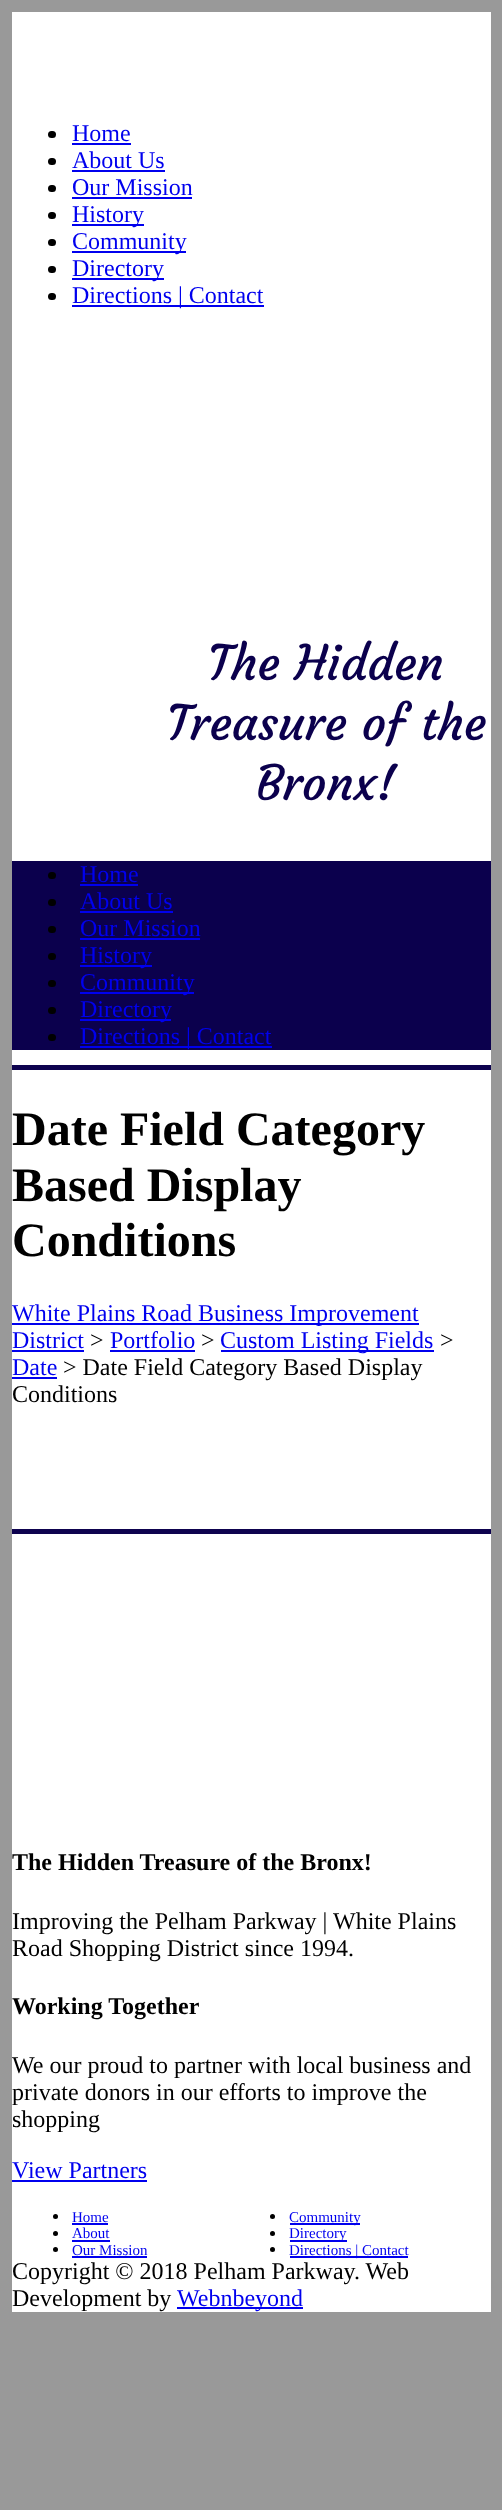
async function draw(canvas) {
	canvas.width = 502;
	canvas.height = 2510;
	const c = canvas.getContext('2d');
	c.miterLimit = 4;
	c.fontKerning = 'normal';

	c.fillStyle = '#999';
	c.fillRect(0, 0, 502, 2510);
	c.fillStyle = '#fff';
	c.fillRect(12, 12, 479, 2300);
	c.fillStyle = '#000';
	c.beginPath();
	c.roundRect(48, 131, 8, 7, 3.5);
	c.fill();
	c.font = '24px Liberation Serif';
	c.fillStyle = '#00e';
	c.fillText('Home', 72, 141);
	c.fillRect(72, 143, 59, 2);
	c.fillStyle = '#000';
	c.beginPath();
	c.roundRect(48, 158, 8, 7, 3.5);
	c.fill();
	c.fillStyle = '#00e';
	c.fillText('About Us', 72, 168);
	c.fillRect(72, 170, 93, 2);
	c.fillStyle = '#000';
	c.beginPath();
	c.roundRect(48, 185, 8, 7, 3.5);
	c.fill();
	c.fillStyle = '#00e';
	c.fillText('Our Mission', 72, 195);
	c.fillRect(72, 197, 120, 2);
	c.fillStyle = '#000';
	c.beginPath();
	c.roundRect(48, 212, 8, 7, 3.5);
	c.fill();
	c.fillStyle = '#00e';
	c.fillRect(72, 224, 72, 2);
	c.fillText('History', 72, 222);
	c.fillStyle = '#000';
	c.beginPath();
	c.roundRect(48, 239, 8, 7, 3.5);
	c.fill();
	c.fillStyle = '#00e';
	c.fillRect(72, 251, 114, 2);
	c.fillText('Community', 72, 249);
	c.fillStyle = '#000';
	c.beginPath();
	c.roundRect(48, 266, 8, 7, 3.5);
	c.fill();
	c.fillStyle = '#00e';
	c.fillRect(72, 278, 92, 2);
	c.fillText('Directory', 72, 276);
	c.fillStyle = '#000';
	c.beginPath();
	c.roundRect(48, 293, 8, 7, 3.5);
	c.fill();
	c.fillStyle = '#00e';
	c.fillRect(72, 305, 192, 2);
	c.fillText('Directions | Contact', 72, 303);
	c.fillStyle = '#0e034f';
	c.fillRect(12, 1065, 479, 5);
	c.font = '48px Courgette';
	c.fillStyle = '#0b004d';
	for (const [text, x, y] of [
		['The Hidden', 208, 680],
		['Treasure of the', 167, 740],
		['Bronx!', 256, 800],
	]) {
		c.fillText(text, x, y);
	}
	c.fillRect(12, 861, 479, 189);
	c.fillStyle = '#000';
	c.beginPath();
	c.roundRect(48, 872, 8, 7, 3.5);
	c.fill();
	c.font = '24px Liberation Serif';
	c.fillStyle = '#00e';
	c.fillText('Home', 80, 882);
	c.fillRect(80, 884, 58, 2);
	c.fillStyle = '#000';
	c.beginPath();
	c.roundRect(48, 899, 8, 7, 3.5);
	c.fill();
	c.fillStyle = '#00e';
	c.fillText('About Us', 80, 909);
	c.fillRect(80, 911, 93, 2);
	c.fillStyle = '#000';
	c.beginPath();
	c.roundRect(48, 926, 8, 7, 3.5);
	c.fill();
	c.fillStyle = '#00e';
	c.fillText('Our Mission', 80, 936);
	c.fillRect(80, 938, 120, 2);
	c.fillStyle = '#000';
	c.beginPath();
	c.roundRect(48, 953, 8, 7, 3.5);
	c.fill();
	c.fillStyle = '#00e';
	c.fillRect(80, 965, 72, 2);
	c.fillText('History', 80, 963);
	c.fillStyle = '#000';
	c.beginPath();
	c.roundRect(48, 980, 8, 7, 3.5);
	c.fill();
	c.fillStyle = '#00e';
	c.fillRect(80, 992, 114, 2);
	c.fillText('Community', 80, 990);
	c.fillStyle = '#000';
	c.beginPath();
	c.roundRect(48, 1007, 8, 7, 3.5);
	c.fill();
	c.fillStyle = '#00e';
	c.fillRect(80, 1019, 91, 2);
	c.fillText('Directory', 80, 1017);
	c.fillStyle = '#000';
	c.beginPath();
	c.roundRect(48, 1034, 8, 7, 3.5);
	c.fill();
	c.fillStyle = '#00e';
	c.fillRect(80, 1046, 192, 2);
	c.fillText('Directions | Contact', 80, 1044);
	c.font = 'bold 48px Liberation Serif';
	c.fillStyle = '#000';
	for (const [text, x, y] of [
		['Date Field Category', 12, 1145],
		['Based Display', 12, 1201],
		['Conditions', 12, 1256],
	]) {
		c.fillText(text, x, y);
	}
	c.fillStyle = '#00e';
	c.fillRect(12, 1323, 407, 2);
	c.font = '24px Liberation Serif';
	c.fillText('White Plains Road Business Improvement', 12, 1321);
	c.fillText('District', 12, 1348);
	c.fillRect(12, 1350, 72, 2);
	c.fillStyle = '#000';
	c.fillText('>', 90, 1348);
	c.fillStyle = '#00e';
	c.fillText('Portfolio', 110, 1348);
	c.fillRect(110, 1350, 85, 2);
	c.fillStyle = '#000';
	c.fillText('>', 201, 1348);
	c.fillStyle = '#00e';
	c.fillRect(221, 1350, 213, 2);
	c.fillText('Custom Listing Fields', 220, 1348);
	c.fillStyle = '#000';
	c.fillText('>', 440, 1348);
	c.fillStyle = '#00e';
	c.fillText('Date', 12, 1375);
	c.fillRect(12, 1377, 45, 2);
	c.fillStyle = '#000';
	c.fillText('> Date Field Category Based Display', 63, 1375);
	c.fillText('Conditions', 12, 1402);
	c.fillStyle = '#0e034f';
	c.fillRect(12, 1529, 479, 5);
	c.font = 'bold 24px Liberation Serif';
	c.fillStyle = '#000';
	c.fillText('The Hidden Treasure of the Bronx!', 12, 1870);
	c.font = '24px Liberation Serif';
	c.fillText('Improving the Pelham Parkway | White Plains', 12, 1929);
	c.fillText('Road Shopping District since 1994.', 12, 1956);
	c.font = 'bold 24px Liberation Serif';
	c.fillText('Working Together', 12, 2014);
	c.font = '24px Liberation Serif';
	for (const [text, x, y] of [
		['We our proud to partner with local business and', 12, 2073],
		['private donors in our efforts to improve the', 12, 2100],
		['shopping', 12, 2127],
	]) {
		c.fillText(text, x, y);
	}
	c.fillStyle = '#00e';
	c.fillText('View Partners', 12, 2178);
	c.fillRect(12, 2180, 135, 2);
	c.fillStyle = '#000';
	c.beginPath();
	c.arc(55.5, 2216.5, 2.5, 0, 2 * Math.PI);
	c.fill();
	c.font = '15px Liberation Serif';
	c.fillStyle = '#00e';
	c.fillText('Home', 72, 2222);
	c.fillRect(72, 2223, 36, 2);
	c.fillStyle = '#000';
	c.beginPath();
	c.arc(272.5, 2216.5, 2.5, 0, 2 * Math.PI);
	c.fill();
	c.fillStyle = '#00e';
	c.fillRect(290, 2223, 70, 2);
	c.fillText('Community', 289, 2222);
	c.fillStyle = '#000';
	c.beginPath();
	c.arc(55.5, 2233.5, 2.5, 0, 2 * Math.PI);
	c.fill();
	c.fillStyle = '#00e';
	c.fillText('About', 72, 2238);
	c.fillRect(72, 2240, 38, 2);
	c.fillStyle = '#000';
	c.beginPath();
	c.arc(272.5, 2233.5, 2.5, 0, 2 * Math.PI);
	c.fill();
	c.fillStyle = '#00e';
	c.fillRect(290, 2240, 57, 2);
	c.fillText('Directory', 289, 2238);
	c.fillStyle = '#000';
	c.beginPath();
	c.arc(55.5, 2249.5, 2.5, 0, 2 * Math.PI);
	c.fill();
	c.fillStyle = '#00e';
	c.fillText('Our Mission', 72, 2255);
	c.fillRect(72, 2256, 75, 2);
	c.fillStyle = '#000';
	c.beginPath();
	c.arc(272.5, 2249.5, 2.5, 0, 2 * Math.PI);
	c.fill();
	c.fillStyle = '#00e';
	c.fillRect(290, 2256, 118, 2);
	c.fillText('Directions | Contact', 289, 2255);
	c.font = '24px Liberation Serif';
	c.fillStyle = '#000';
	c.fillText('Copyright © 2018 Pelham Parkway. Web', 12, 2279);
	c.fillText('Development by', 12, 2306);
	c.fillStyle = '#00e';
	c.fillRect(177, 2307, 126, 2);
	c.fillText('Webnbeyond', 177, 2306);
}

draw(document.querySelector('canvas'));
